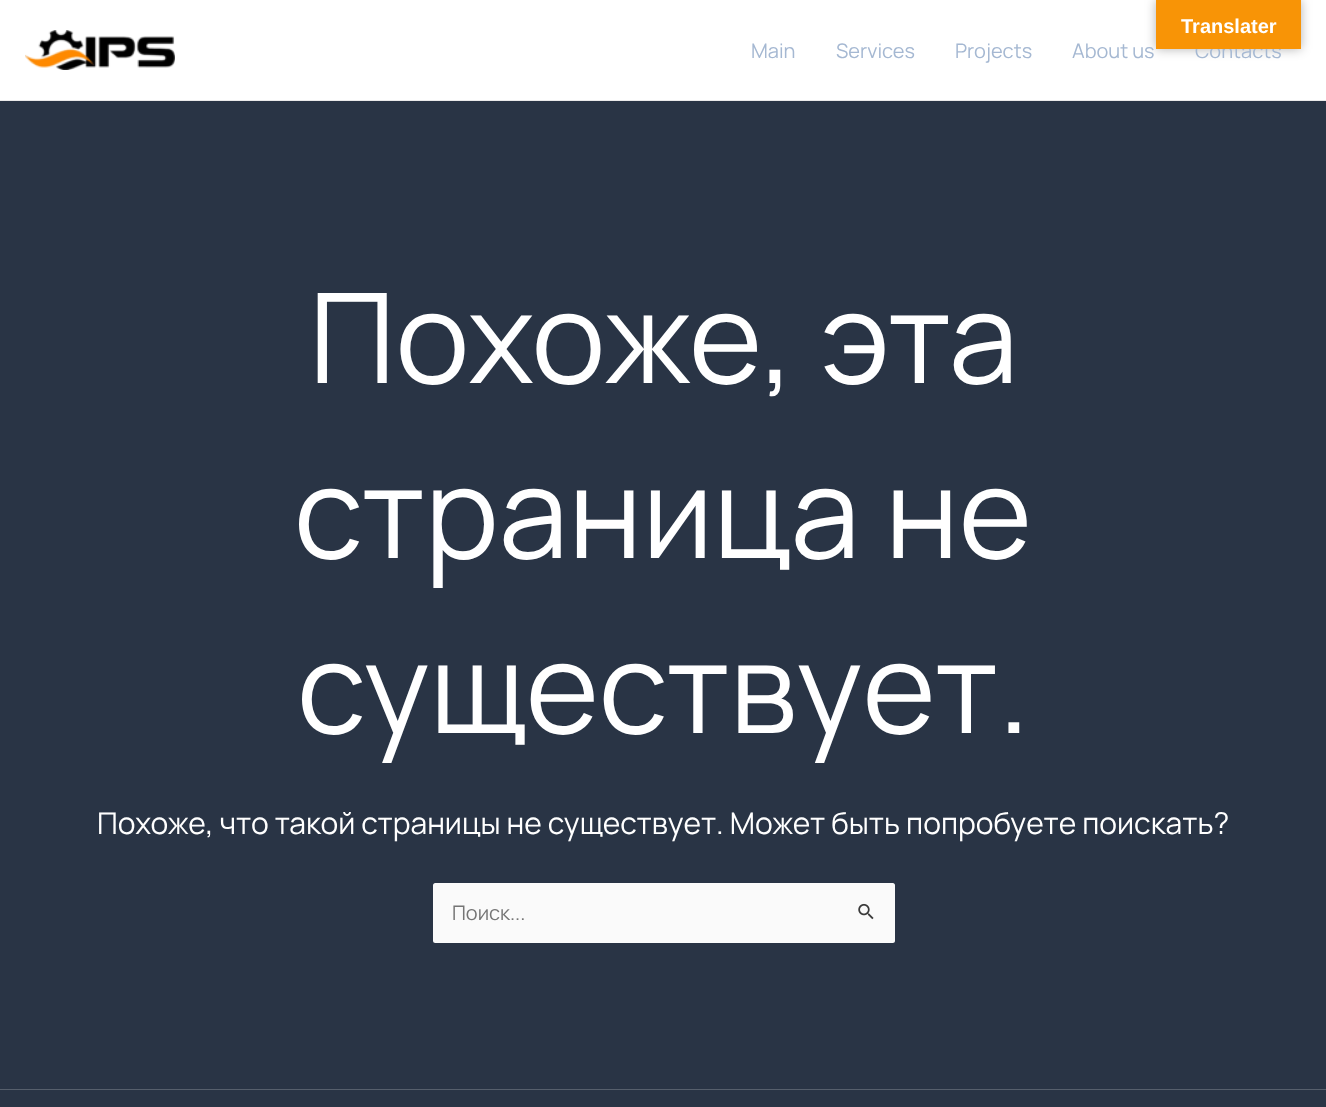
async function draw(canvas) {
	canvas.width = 1326;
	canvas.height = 1107;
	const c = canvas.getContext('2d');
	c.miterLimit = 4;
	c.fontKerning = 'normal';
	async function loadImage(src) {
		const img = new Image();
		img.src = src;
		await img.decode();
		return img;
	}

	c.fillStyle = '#293445';
	c.fillRect(0, 0, 1326, 1107);
	c.fillStyle = '#fff';
	c.fillRect(0, 0, 1326, 100);
	c.fillStyle = '#0000004d';
	c.filter = 'blur(5.5px)';
	c.beginPath();
	c.rect(1156, 0, 145, 49);
	c.fill();
	c.filter = 'none';
	c.font = '20px Manrope';
	c.fillStyle = '#a5b8d2';
	c.fillText('Contacts', 1195, 58);
	c.fillStyle = '#f89406';
	c.fillRect(1156, 0, 145, 49);
	c.font = 'bold 20px Liberation Sans';
	c.fillStyle = '#fff';
	c.fillText('Translater', 1181, 33);
	c.fillStyle = '#eaeaea';
	c.fillRect(0, 100, 1326, 1);
	c.drawImage(await loadImage('img1.png'), 25, 30, 150, 40);
	c.font = '20px Manrope';
	c.fillStyle = '#a5b8d2';
	for (const [text, x, y] of [
		['Main', 751, 58],
		['Services', 836, 58],
		['Projects', 955, 58],
		['About us', 1072, 58],
	]) {
		c.fillText(text, x, y);
	}
	c.font = '125px Manrope';
	c.fillStyle = '#fff';
	for (const [text, x, y] of [
		['Похоже, эта', 309, 383],
		['страница не', 294, 558],
		['существует.', 297, 733],
	]) {
		c.fillText(text, x, y);
	}
	c.font = '30px Manrope';
	c.fillText('Похоже, что такой страницы не существует. Может быть попробуете поискать?', 97, 834);
	c.fillStyle = '#fafafa';
	c.beginPath();
	c.roundRect(433, 883, 462, 60, 2.5);
	c.fill();
	c.beginPath();
	c.roundRect(433.5, 883.5, 461, 59, 2);
	c.strokeStyle = '#ffffff36';
	c.stroke();
	c.font = '20px Manrope';
	c.fillStyle = '#757575';
	c.fillText('Поиск...', 452, 920);
	c.drawImage(await loadImage('img2.png'), 858, 903, 16, 17);
	c.fillStyle = '#565f6c';
	c.fillRect(0, 1089, 1326, 1);
}

draw(document.querySelector('canvas'));
